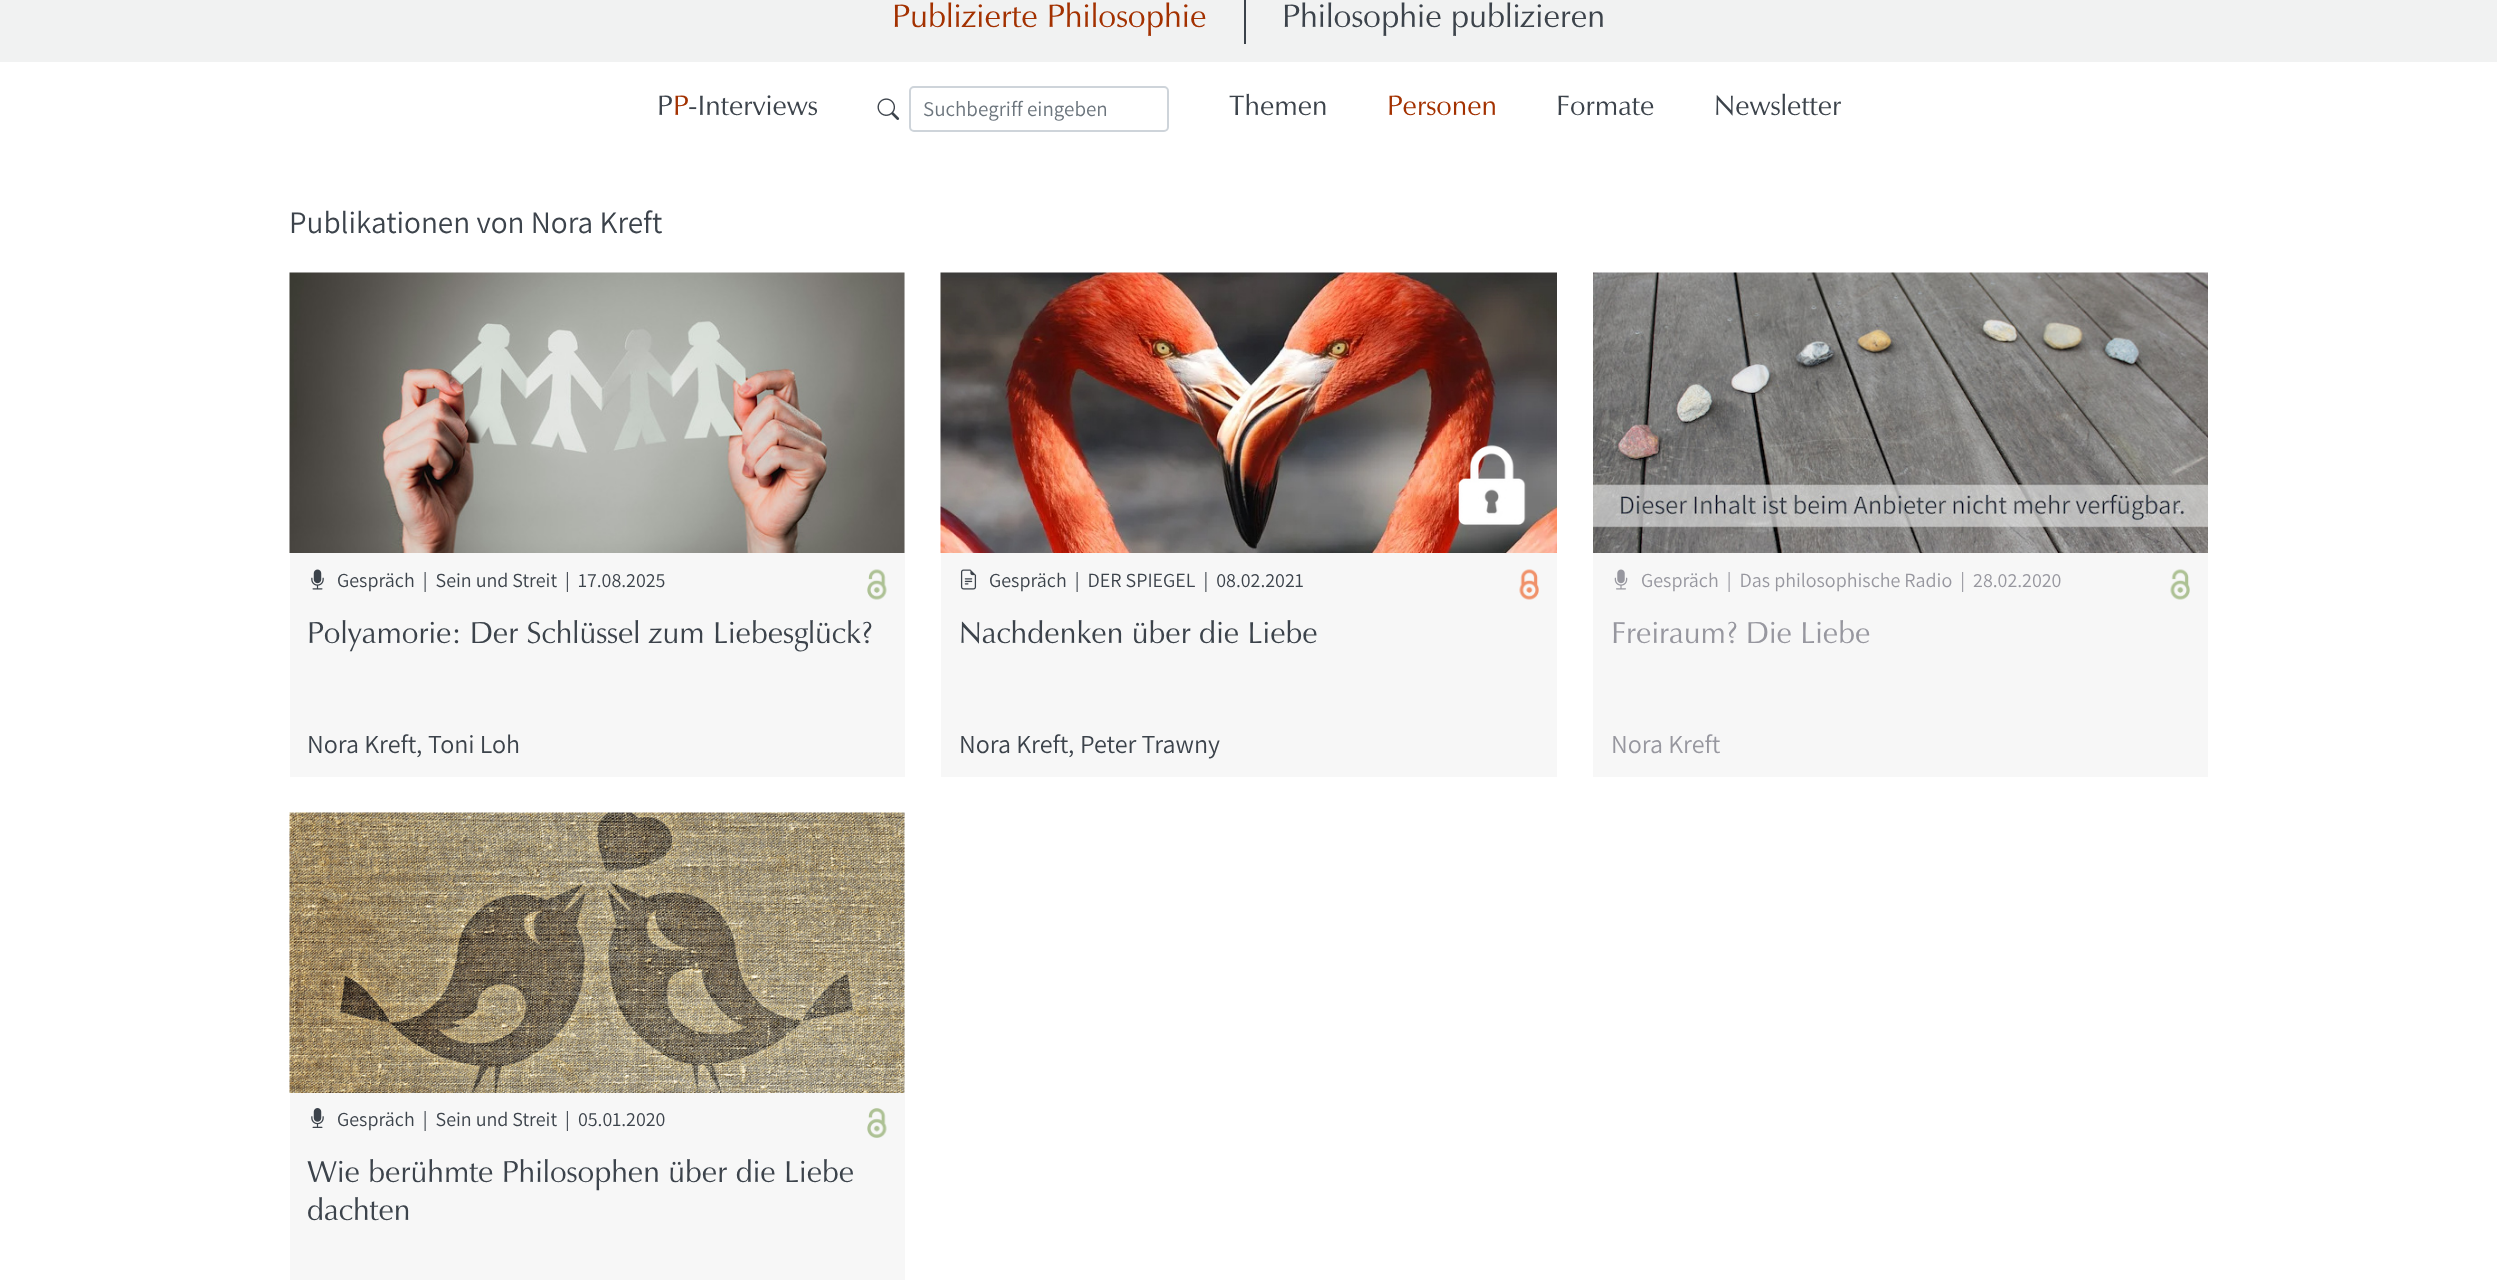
async function draw(canvas) {
	canvas.width = 2497;
	canvas.height = 1280;
	const c = canvas.getContext('2d');
	c.miterLimit = 4;
	c.fontKerning = 'normal';
	async function loadImage(src) {
		const img = new Image();
		img.src = src;
		await img.decode();
		return img;
	}

	c.fillStyle = '#fff';
	c.fillRect(0, 0, 2497, 1280);
	c.fillStyle = '#f1f2f2';
	c.fillRect(0, 0, 2497, 62);
	c.font = '33.5px "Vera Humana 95"';
	c.fillStyle = '#a33100';
	c.fillText('Publizierte Philosophie', 892, 27);
	c.fillStyle = '#3c434b';
	c.fillRect(1244, 0, 2, 44);
	c.fillText('Philosophie publizieren', 1282, 27);
	c.font = '29px "Vera Humana 95"';
	c.fillText('P', 657, 115);
	c.fillStyle = '#a33100';
	c.fillText('P', 673, 115);
	c.fillStyle = '#3c434b';
	c.fillText('-Interviews', 688, 115);
	c.drawImage(await loadImage('img1.png'), 877, 98, 23, 22);
	c.beginPath();
	c.roundRect(910, 87, 258, 44, 4);
	c.strokeStyle = '#ced4da';
	c.lineWidth = 2;
	c.stroke();
	c.font = '21px Assistant';
	c.fillStyle = '#6c757d';
	c.fillText('Suchbegriff eingeben', 923, 116);
	c.font = '29px "Vera Humana 95"';
	c.fillStyle = '#3c434b';
	c.fillText('Themen', 1229, 115);
	c.fillStyle = '#a33100';
	c.fillText('Personen', 1387, 115);
	c.fillStyle = '#3c434b';
	c.fillText('Formate', 1556, 115);
	c.fillText('Newsletter', 1714, 115);
	c.font = '31.25px Assistant';
	c.fillText('Publikationen von Nora Kreft', 289, 233);
	c.fillStyle = '#f7f7f7';
	c.fillRect(290, 273, 615, 504);
	c.drawImage(await loadImage('img2.png'), 289, 272, 616, 281);
	c.drawImage(await loadImage('img3.png'), 311, 569, 13, 21);
	c.font = '20px Assistant';
	c.fillStyle = '#3c434b';
	c.fillText('Gespräch  |  Sein und Streit  |  17.08.2025', 337, 587);
	c.drawImage(await loadImage('img4.png'), 867, 569, 20, 31);
	c.font = '31.25px "Vera Humana 95"';
	c.fillText('Polyamorie: Der Schlüssel zum Liebesglück?', 307, 643);
	c.font = '26px Assistant';
	for (const [text, x, y] of [
		['Nora Kreft', 307, 753],
		[',', 416, 753],
		['Toni Loh', 428, 753],
	]) {
		c.fillText(text, x, y);
	}
	c.fillStyle = '#f7f7f7';
	c.fillRect(941, 553, 616, 224);
	c.drawImage(await loadImage('img5.png'), 940, 272, 617, 281);
	c.drawImage(await loadImage('img6.png'), 960, 569, 17, 21);
	c.font = '20px Assistant';
	c.fillStyle = '#3c434b';
	c.fillText('Gespräch  |  DER SPIEGEL  |  08.02.2021', 989, 587);
	c.drawImage(await loadImage('img7.png'), 1519, 569, 20, 31);
	c.font = '31.25px "Vera Humana 95"';
	c.fillText('Nachdenken über die Liebe', 959, 643);
	c.font = '26px Assistant';
	for (const [text, x, y] of [
		['Nora Kreft', 959, 753],
		[',', 1068, 753],
		['Peter Trawny', 1080, 753],
	]) {
		c.fillText(text, x, y);
	}
	c.fillStyle = '#f7f7f7';
	c.fillRect(1593, 553, 615, 224);
	c.drawImage(await loadImage('img8.png'), 1593, 272, 615, 281);
	c.drawImage(await loadImage('img9.png'), 1614, 569, 14, 21);
	c.font = '20px Assistant';
	c.fillStyle = '#97979f';
	c.fillText('Gespräch  |  Das philosophische Radio  |  28.02.2020', 1641, 587);
	c.drawImage(await loadImage('img10.png'), 2170, 569, 20, 31);
	c.font = '31.25px "Vera Humana 95"';
	c.fillText('Freiraum? Die Liebe', 1611, 643);
	c.font = '26px Assistant';
	c.fillText('Nora Kreft', 1611, 753);
	c.fillStyle = '#f7f7f7';
	c.fillRect(290, 813, 615, 467);
	c.drawImage(await loadImage('img11.png'), 289, 812, 616, 281);
	c.drawImage(await loadImage('img12.png'), 311, 1108, 13, 20);
	c.font = '20px Assistant';
	c.fillStyle = '#3c434b';
	c.fillText('Gespräch  |  Sein und Streit  |  05.01.2020', 337, 1126);
	c.drawImage(await loadImage('img13.png'), 867, 1108, 20, 30);
	c.font = '31.25px "Vera Humana 95"';
	c.fillText('Wie berühmte Philosophen über die Liebe', 307, 1182);
	c.save();
	c.beginPath();
	c.rect(308, 1151, 579, 112);
	c.clip();
	c.fillText('dachten', 307, 1220);
	c.restore();
}

draw(document.querySelector('canvas'));
